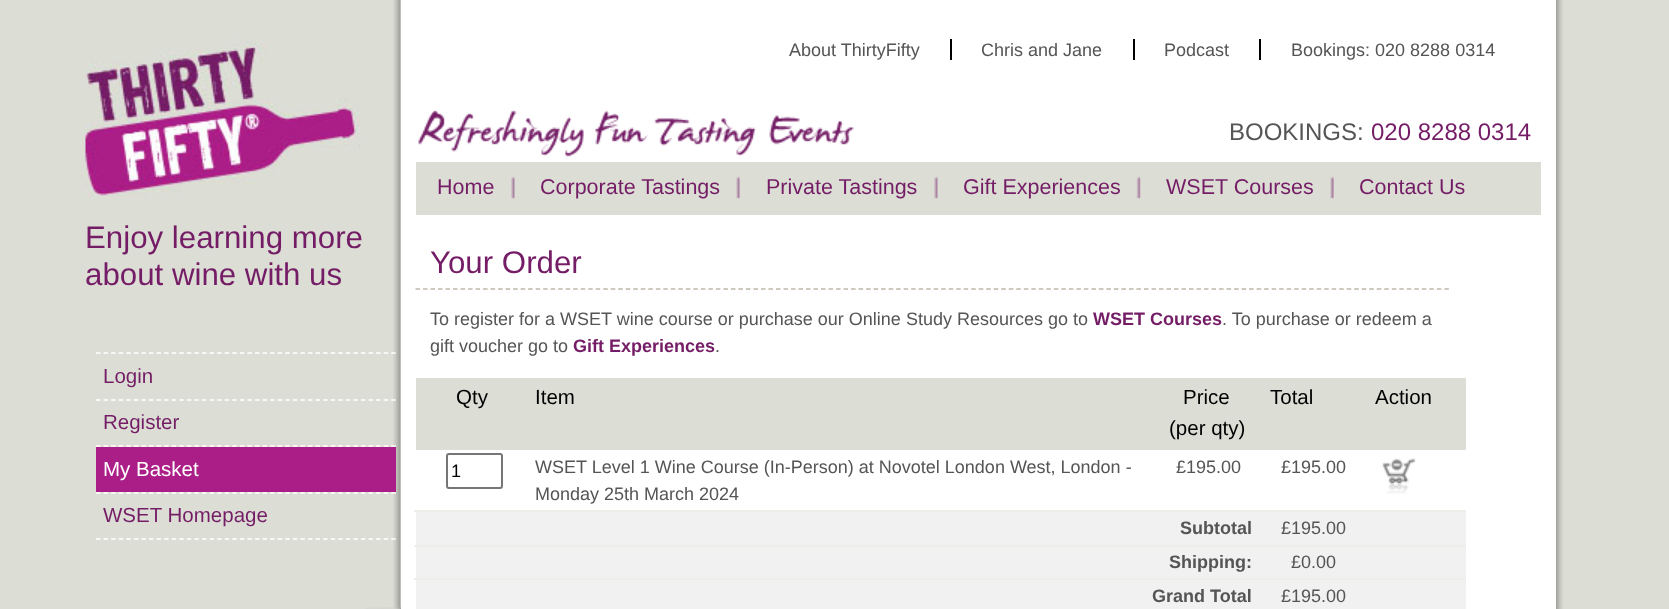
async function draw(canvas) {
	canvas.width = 1669;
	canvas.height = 609;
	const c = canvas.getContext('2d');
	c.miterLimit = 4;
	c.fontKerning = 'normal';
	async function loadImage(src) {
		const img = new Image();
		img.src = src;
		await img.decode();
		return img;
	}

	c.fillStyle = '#dcddd5';
	c.fillRect(0, 0, 1669, 609);
	c.drawImage(await loadImage('img1.png'), 393, 0, 1170, 609);
	c.drawImage(await loadImage('img2.png'), 85, 39, 276, 157);
	c.font = '31.25px Liberation Sans';
	c.fillStyle = '#741d66';
	c.fillText('Enjoy learning more', 85, 248);
	c.fillText('about wine with us', 85, 285);
	c.beginPath();
	c.moveTo(96, 353);
	c.lineTo(396, 353);
	c.strokeStyle = '#fff';
	c.lineWidth = 1.5;
	c.setLineDash([4.5, 3.07]);
	c.stroke();
	c.font = '20.5px Liberation Sans';
	c.fillText('Login', 103, 383);
	c.beginPath();
	c.moveTo(96, 400);
	c.lineTo(396, 400);
	c.stroke();
	c.fillText('Register', 103, 429);
	c.beginPath();
	c.moveTo(96, 446);
	c.lineTo(396, 446);
	c.stroke();
	c.fillStyle = '#ab1e88';
	c.fillRect(96, 447, 300, 45);
	c.fillStyle = '#fff';
	c.fillText('My Basket', 103, 476);
	c.beginPath();
	c.moveTo(96, 493);
	c.lineTo(396, 493);
	c.stroke();
	c.beginPath();
	c.moveTo(96, 539);
	c.lineTo(396, 539);
	c.stroke();
	c.fillStyle = '#741d66';
	c.fillText('WSET Homepage', 103, 522);
	c.drawImage(await loadImage('img3.png'), 365, 607, 36, 2);
	c.fillStyle = '#fff';
	c.fillRect(401, 0, 1155, 609);
	c.fillStyle = '#000';
	c.fillRect(950, 39, 2, 21);
	c.font = '18px Liberation Sans';
	c.fillStyle = '#555';
	c.fillText('About ThirtyFifty', 789, 56);
	c.fillStyle = '#000';
	c.fillRect(1133, 39, 2, 21);
	c.fillStyle = '#555';
	c.fillText('Chris and Jane', 981, 56);
	c.fillStyle = '#000';
	c.fillRect(1259, 39, 2, 21);
	c.fillStyle = '#555';
	c.fillText('Podcast', 1164, 56);
	c.fillText('Bookings: 020 8288 0314', 1291, 56);
	c.drawImage(await loadImage('img4.png'), 418, 110, 436, 47);
	c.font = '24px Liberation Sans';
	c.fillText('BOOKINGS:', 1229, 140);
	c.fillStyle = '#741d66';
	c.fillText('020 8288 0314', 1371, 140);
	c.fillStyle = '#dcddd5';
	c.fillRect(416, 162, 1125, 53);
	c.drawImage(await loadImage('img5.png'), 511, 176, 4, 23);
	c.font = '21.5px Liberation Sans';
	c.fillStyle = '#741d66';
	c.fillText('Home', 437, 194);
	c.drawImage(await loadImage('img6.png'), 736, 176, 4, 23);
	c.fillText('Corporate Tastings', 540, 194);
	c.drawImage(await loadImage('img5.png'), 934, 176, 4, 23);
	c.fillText('Private Tastings', 766, 194);
	c.drawImage(await loadImage('img7.png'), 1136, 176, 5, 23);
	c.fillText('Gift Experiences', 963, 194);
	c.drawImage(await loadImage('img6.png'), 1330, 176, 4, 23);
	c.fillText('WSET Courses', 1166, 194);
	c.fillText('Contact Us', 1359, 194);
	c.beginPath();
	c.moveTo(415.5, 289);
	c.lineTo(1450.5, 289);
	c.strokeStyle = '#beb8a9';
	c.setLineDash([4.5, 3.01]);
	c.stroke();
	c.font = '31.25px Liberation Sans';
	c.fillText('Your Order', 430, 273);
	c.font = '18px Liberation Sans';
	c.fillStyle = '#555';
	c.fillText('To register for a WSET wine course or purchase our Online Study Resources go to', 430, 325);
	c.font = 'bold 18px Liberation Sans';
	c.fillStyle = '#741d66';
	c.fillText('WSET Courses', 1093, 325);
	c.font = '18px Liberation Sans';
	c.fillStyle = '#555';
	c.fillText('. To purchase or redeem a', 1222, 325);
	c.fillText('gift voucher go to', 430, 352);
	c.font = 'bold 18px Liberation Sans';
	c.fillStyle = '#741d66';
	c.fillText('Gift Experiences', 573, 352);
	c.font = '18px Liberation Sans';
	c.fillStyle = '#555';
	c.fillText('.', 715, 352);
	c.fillStyle = '#dcddd5';
	c.fillRect(416, 378, 1050, 72);
	c.font = '20.5px Liberation Sans';
	c.fillStyle = '#000';
	for (const [text, x, y] of [
		['Qty', 456, 404],
		['Item', 535, 404],
		['Price', 1183, 404],
		['(per qty)', 1169, 435],
		['Total', 1270, 404],
		['Action', 1375, 404],
	]) {
		c.fillText(text, x, y);
	}
	c.fillStyle = '#ededea';
	c.fillRect(414, 510, 1052, 2);
	c.beginPath();
	c.roundRect(447, 454, 55, 34, 2);
	c.strokeStyle = '#767676';
	c.lineWidth = 2;
	c.setLineDash([]);
	c.stroke();
	c.font = '18px Liberation Sans';
	c.fillStyle = '#000';
	c.fillText('1', 451, 477);
	c.fillStyle = '#555';
	for (const [text, x, y] of [
		['WSET Level 1 Wine Course (In-Person) at Novotel London West, London -', 535, 473],
		['Monday 25th March 2024', 535, 500],
		['£195.00', 1176, 473],
		['£195.00', 1281, 473],
	]) {
		c.fillText(text, x, y);
	}
	c.drawImage(await loadImage('img8.png'), 1382, 458, 34, 36);
	c.fillStyle = '#f1f1f1';
	c.fillRect(416, 512, 1050, 33);
	c.fillStyle = '#ededea';
	c.fillRect(414, 545, 1052, 2);
	c.font = 'bold 18px Liberation Sans';
	c.fillStyle = '#555';
	c.fillText('Subtotal', 1180, 534);
	c.font = '18px Liberation Sans';
	c.fillText('£195.00', 1281, 534);
	c.fillStyle = '#f1f1f1';
	c.fillRect(416, 547, 1050, 31);
	c.fillStyle = '#ededea';
	c.fillRect(414, 578, 1052, 2);
	c.font = 'bold 18px Liberation Sans';
	c.fillStyle = '#555';
	c.fillText('Shipping:', 1169, 568);
	c.font = '18px Liberation Sans';
	c.fillText('£0.00', 1291, 568);
	c.fillStyle = '#f1f1f1';
	c.fillRect(416, 580, 1050, 29);
	c.font = 'bold 18px Liberation Sans';
	c.fillStyle = '#555';
	c.fillText('Grand Total', 1152, 602);
	c.font = '18px Liberation Sans';
	c.fillText('£195.00', 1281, 602);
}

draw(document.querySelector('canvas'));
